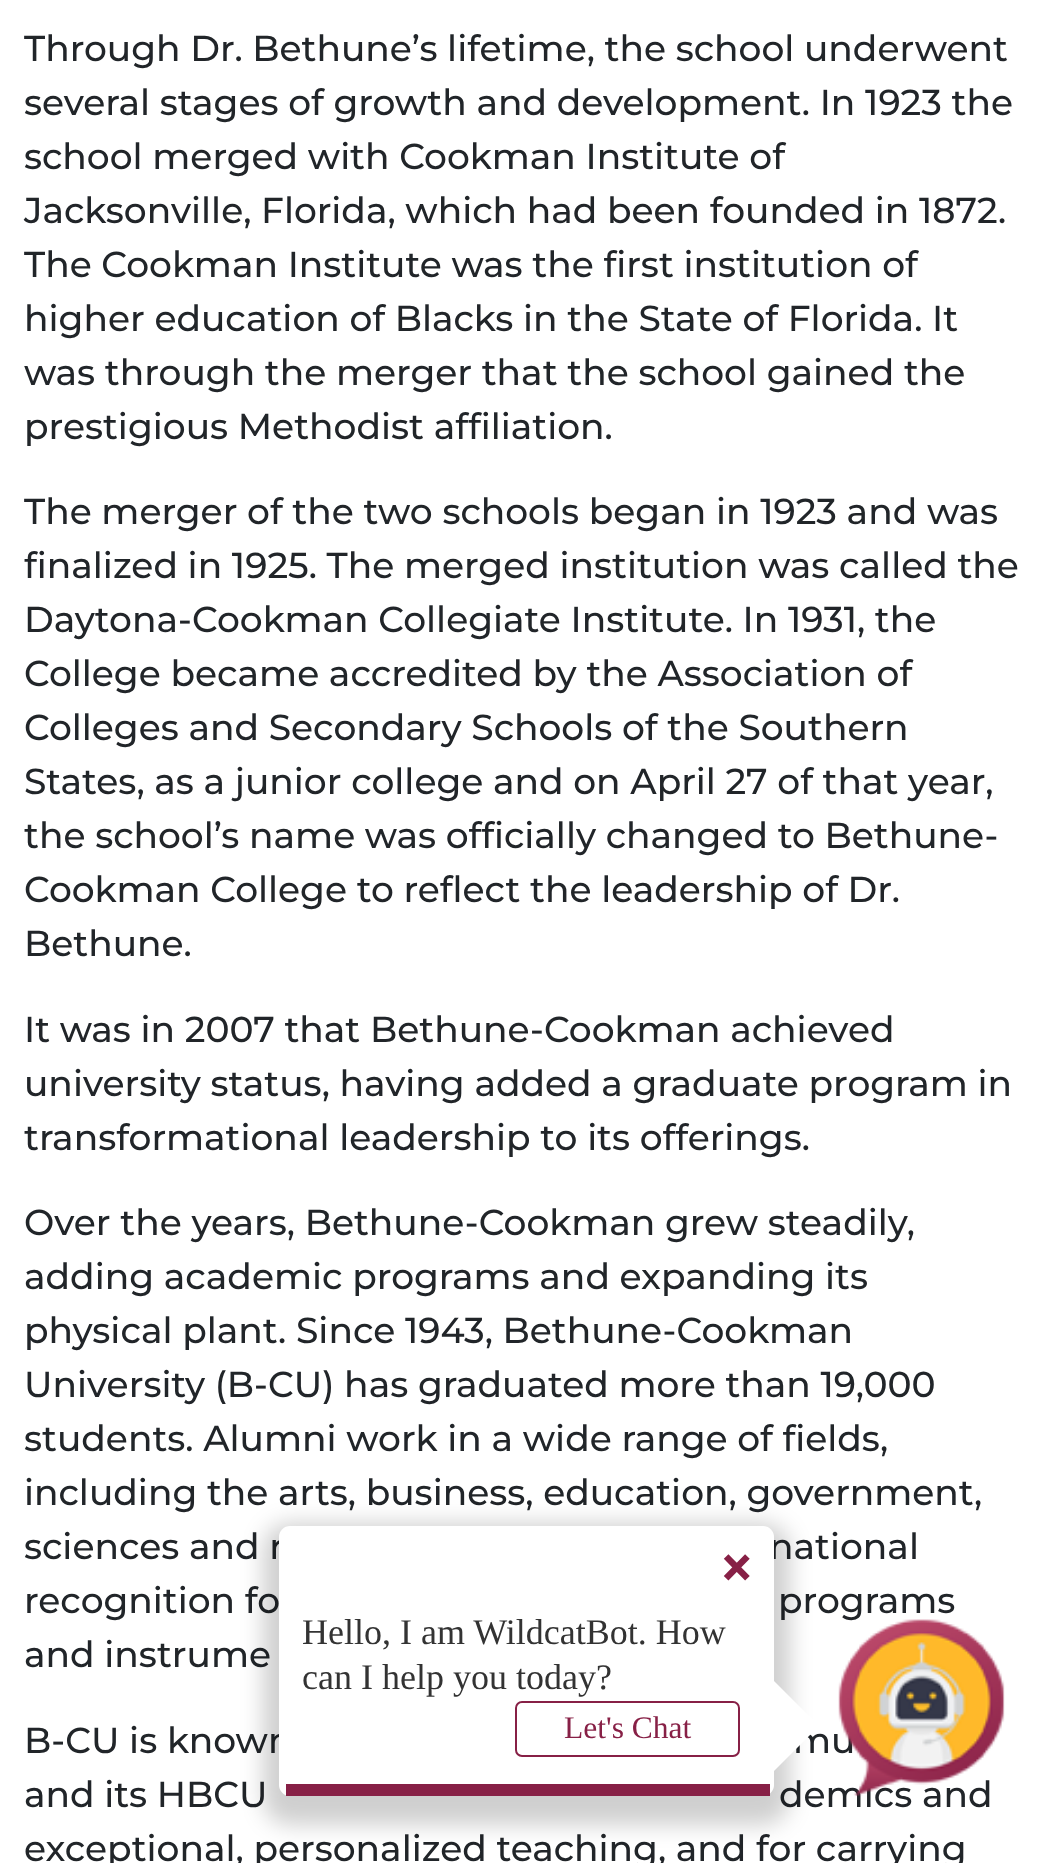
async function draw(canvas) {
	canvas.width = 1043;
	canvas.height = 1863;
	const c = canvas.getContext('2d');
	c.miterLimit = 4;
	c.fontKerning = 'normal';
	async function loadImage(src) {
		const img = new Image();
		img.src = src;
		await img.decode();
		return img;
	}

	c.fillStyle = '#fff';
	c.fillRect(0, 0, 1043, 1863);
	c.font = '500 36px Montserrat';
	c.fillStyle = '#212529';
	for (const [text, x, y] of [
		['Through Dr. Bethune’s lifetime, the school underwent', 24, 61],
		['several stages of growth and development. In 1923 the', 24, 115],
		['school merged with Cookman Institute of', 24, 169],
		['Jacksonville, Florida, which had been founded in 1872.', 24, 223],
		['The Cookman Institute was the first institution of', 24, 277],
		['higher education of Blacks in the State of Florida. It', 24, 331],
		['was through the merger that the school gained the', 24, 385],
		['prestigious Methodist affiliation.', 24, 439],
		['The merger of the two schools began in 1923 and was', 24, 524],
		['finalized in 1925. The merged institution was called the', 24, 578],
		['Daytona-Cookman Collegiate Institute. In 1931, the', 24, 632],
		['College became accredited by the Association of', 24, 686],
		['Colleges and Secondary Schools of the Southern', 24, 740],
		['States, as a junior college and on April 27 of that year,', 24, 794],
		['the school’s name was officially changed to Bethune-', 24, 848],
		['Cookman College to reflect the leadership of Dr.', 24, 902],
		['Bethune.', 24, 956],
		['It was in 2007 that Bethune-Cookman achieved', 24, 1042],
		['university status, having added a graduate program in', 24, 1096],
		['transformational leadership to its offerings.', 24, 1150],
		['Over the years, Bethune-Cookman grew steadily,', 24, 1235],
		['adding academic programs and expanding its', 24, 1289],
		['physical plant. Since 1943, Bethune-Cookman', 24, 1343],
		['University (B-CU) has graduated more than 19,000', 24, 1397],
		['students. Alumni work in a wide range of fields,', 24, 1451],
		['including the arts, business, education, government,', 24, 1505],
		['sciences and r', 24, 1559],
		['national', 769, 1559],
		['recognition fo', 24, 1613],
		['programs', 778, 1613],
		['and instrume', 24, 1667],
		['B-CU is known', 24, 1753],
		['mu', 793, 1753],
		['and its HBCU', 24, 1807],
		['demics and', 779, 1807],
		['exceptional, personalized teaching, and for carrying', 24, 1861],
	]) {
		c.fillText(text, x, y);
	}
	c.fillStyle = '#00000030';
	c.filter = 'blur(11px)';
	c.beginPath();
	c.roundRect(263, 1523, 527, 302, 27);
	c.fill();
	c.filter = 'none';
	c.fillStyle = '#fff';
	c.beginPath();
	c.roundRect(279, 1526, 495, 270, 11);
	c.fill();
	c.fillStyle = '#872046';
	c.fillRect(286, 1784, 484, 12);
	c.font = 'bold 56px Roboto';
	c.fillText('×', 722, 1586);
	c.font = '36px Liberation Serif';
	c.fillStyle = '#333';
	c.fillText('Hello, I am WildcatBot. How', 302, 1644);
	c.fillText('can I help you today?', 302, 1689);
	c.beginPath();
	c.roundRect(516, 1702, 223, 54, 6);
	c.strokeStyle = '#872046';
	c.lineWidth = 2;
	c.stroke();
	c.font = '31.5px Liberation Serif';
	c.fillStyle = '#872046';
	c.fillText('Let\'s Chat', 564, 1738);
	c.fillStyle = '#fff';
	c.beginPath();
	c.moveTo(774, 1771);
	c.lineTo(774, 1681);
	c.lineTo(819, 1726);
	c.closePath();
	c.fill();
	c.drawImage(await loadImage('img1.png'), 838, 1619, 167, 178);
}

draw(document.querySelector('canvas'));
